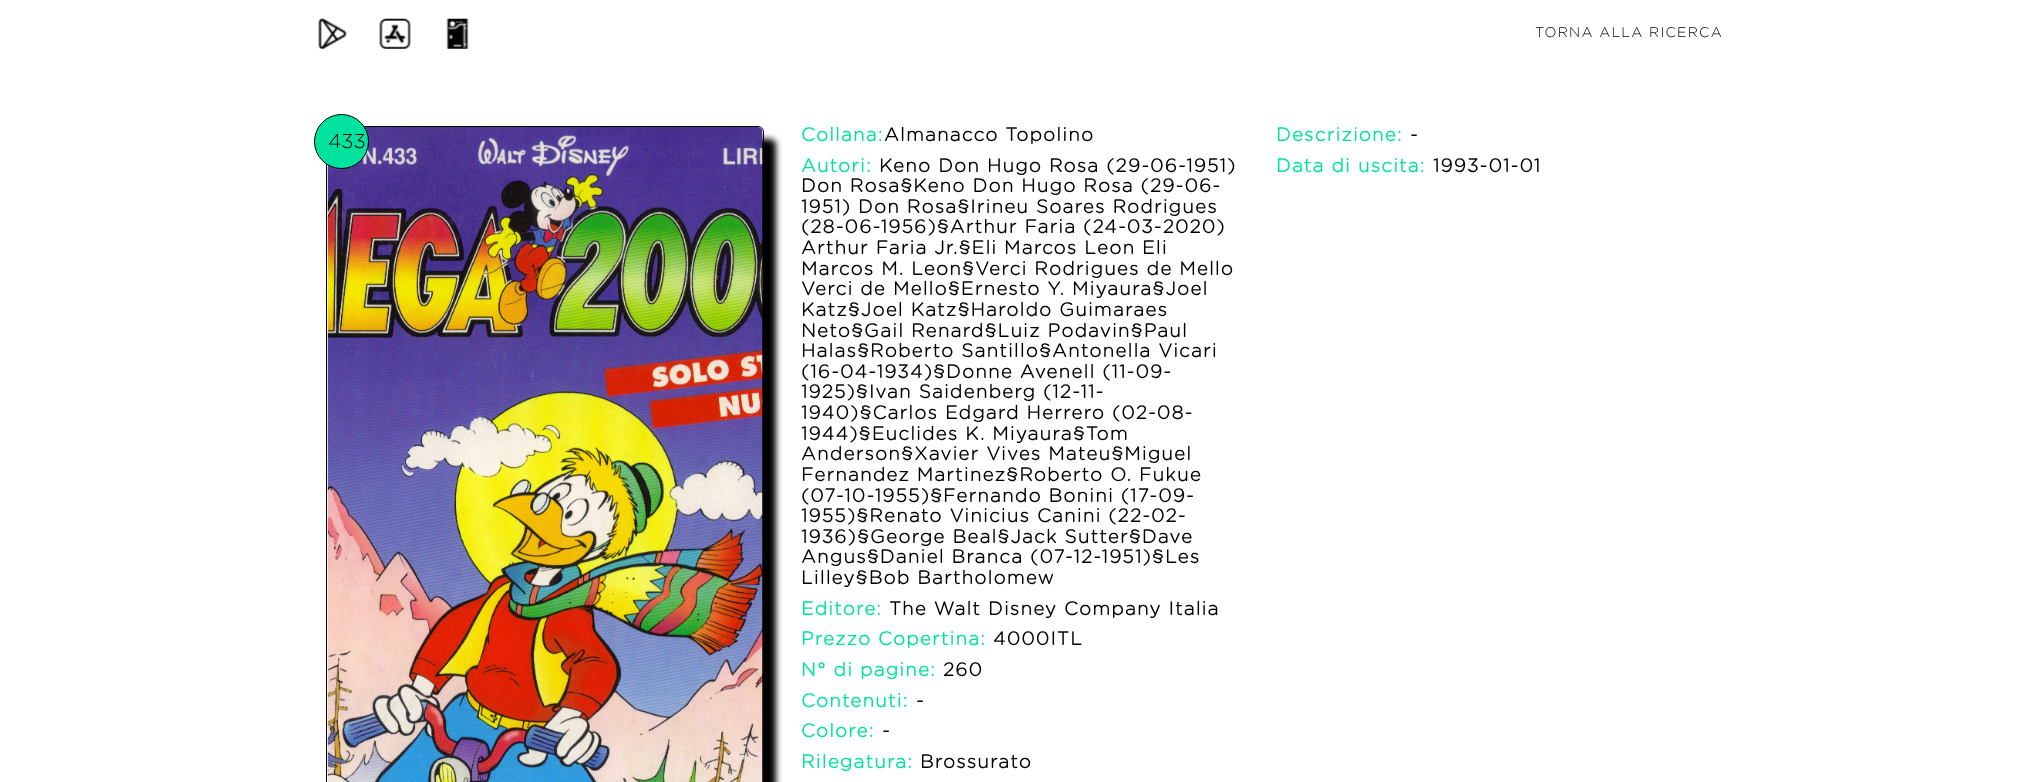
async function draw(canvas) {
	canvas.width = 2039;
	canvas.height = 782;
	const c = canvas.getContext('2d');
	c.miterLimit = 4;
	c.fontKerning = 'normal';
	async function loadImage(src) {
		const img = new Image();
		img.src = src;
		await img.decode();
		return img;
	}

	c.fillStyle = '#fff';
	c.fillRect(0, 0, 2039, 782);
	c.drawImage(await loadImage('img1.png'), 318, 18, 29, 31);
	c.drawImage(await loadImage('img2.png'), 379, 18, 32, 31);
	c.drawImage(await loadImage('img3.png'), 446, 18, 23, 31);
	c.letterSpacing = '1.25px';
	c.font = '300 14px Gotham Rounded';
	c.fillStyle = '#000';
	c.fillText('TORNA ALLA RICERCA', 1535, 37);
	c.filter = 'blur(3px)';
	c.beginPath();
	c.roundRect(339, 139, 437, 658, 6);
	c.fill();
	c.filter = 'none';
	c.beginPath();
	c.roundRect(326.5, 126.5, 437, 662, 5.5);
	c.strokeStyle = '#000';
	c.stroke();
	c.drawImage(await loadImage('img4.png'), 327, 127, 436, 655);
	c.fillStyle = '#00e39e';
	c.beginPath();
	c.arc(341.5, 141.5, 27, 0, 2 * Math.PI);
	c.fill();
	c.stroke();
	c.letterSpacing = '0px';
	c.font = '300 20px Gotham Rounded';
	c.fillStyle = '#000';
	c.fillText('433', 328, 148);
	c.letterSpacing = '1.25px';
	c.font = 'bold 18.75px Gotham Rounded';
	c.fillStyle = '#00e39e';
	c.fillText('Collana:', 801, 141);
	c.fillStyle = '#000';
	c.fillText('Almanacco Topolino', 884, 141);
	c.fillStyle = '#00e39e';
	c.fillText('Autori:', 801, 172);
	c.fillStyle = '#000';
	for (const [text, x, y] of [
		['Keno Don Hugo Rosa (29-06-1951)', 879, 172],
		['Don Rosa§Keno Don Hugo Rosa (29-06-', 801, 192],
		['1951) Don Rosa§Irineu Soares Rodrigues', 801, 213],
		['(28-06-1956)§Arthur Faria (24-03-2020)', 801, 233],
		['Arthur Faria Jr.§Eli Marcos Leon Eli', 801, 254],
		['Marcos M. Leon§Verci Rodrigues de Mello', 801, 275],
		['Verci de Mello§Ernesto Y. Miyaura§Joel', 801, 295],
		['Katz§Joel Katz§Haroldo Guimaraes', 801, 316],
		['Neto§Gail Renard§Luiz Podavin§Paul', 801, 337],
		['Halas§Roberto Santillo§Antonella Vicari', 801, 357],
		['(16-04-1934)§Donne Avenell (11-09-', 801, 378],
		['1925)§Ivan Saidenberg (12-11-', 801, 398],
		['1940)§Carlos Edgard Herrero (02-08-', 801, 419],
		['1944)§Euclides K. Miyaura§Tom', 801, 440],
		['Anderson§Xavier Vives Mateu§Miguel', 801, 460],
		['Fernandez Martinez§Roberto O. Fukue', 801, 481],
		['(07-10-1955)§Fernando Bonini (17-09-', 801, 502],
		['1955)§Renato Vinicius Canini (22-02-', 801, 522],
		['1936)§George Beal§Jack Sutter§Dave', 801, 543],
		['Angus§Daniel Branca (07-12-1951)§Les', 801, 563],
		['Lilley§Bob Bartholomew', 801, 584],
	]) {
		c.fillText(text, x, y);
	}
	c.fillStyle = '#00e39e';
	c.fillText('Editore:', 801, 615);
	c.fillStyle = '#000';
	c.fillText('The Walt Disney Company Italia', 889, 615);
	c.fillStyle = '#00e39e';
	c.fillText('Prezzo Copertina:', 801, 645);
	c.fillStyle = '#000';
	c.fillText('4000ITL', 993, 645);
	c.fillStyle = '#00e39e';
	c.fillText('N° di pagine:', 801, 676);
	c.fillStyle = '#000';
	c.fillText('260', 943, 676);
	c.fillStyle = '#00e39e';
	c.fillText('Contenuti:', 801, 707);
	c.fillStyle = '#000';
	c.fillText('-', 916, 707);
	c.fillStyle = '#00e39e';
	c.fillText('Colore:', 801, 737);
	c.fillStyle = '#000';
	c.fillText('-', 882, 737);
	c.fillStyle = '#00e39e';
	c.fillText('Rilegatura:', 801, 768);
	c.fillStyle = '#000';
	c.fillText('Brossurato', 920, 768);
	c.fillStyle = '#00e39e';
	c.fillText('Descrizione:', 1276, 141);
	c.fillStyle = '#000';
	c.fillText('-', 1410, 141);
	c.fillStyle = '#00e39e';
	c.fillText('Data di uscita:', 1276, 172);
	c.fillStyle = '#000';
	c.fillText('1993-01-01', 1433, 172);
}

draw(document.querySelector('canvas'));
